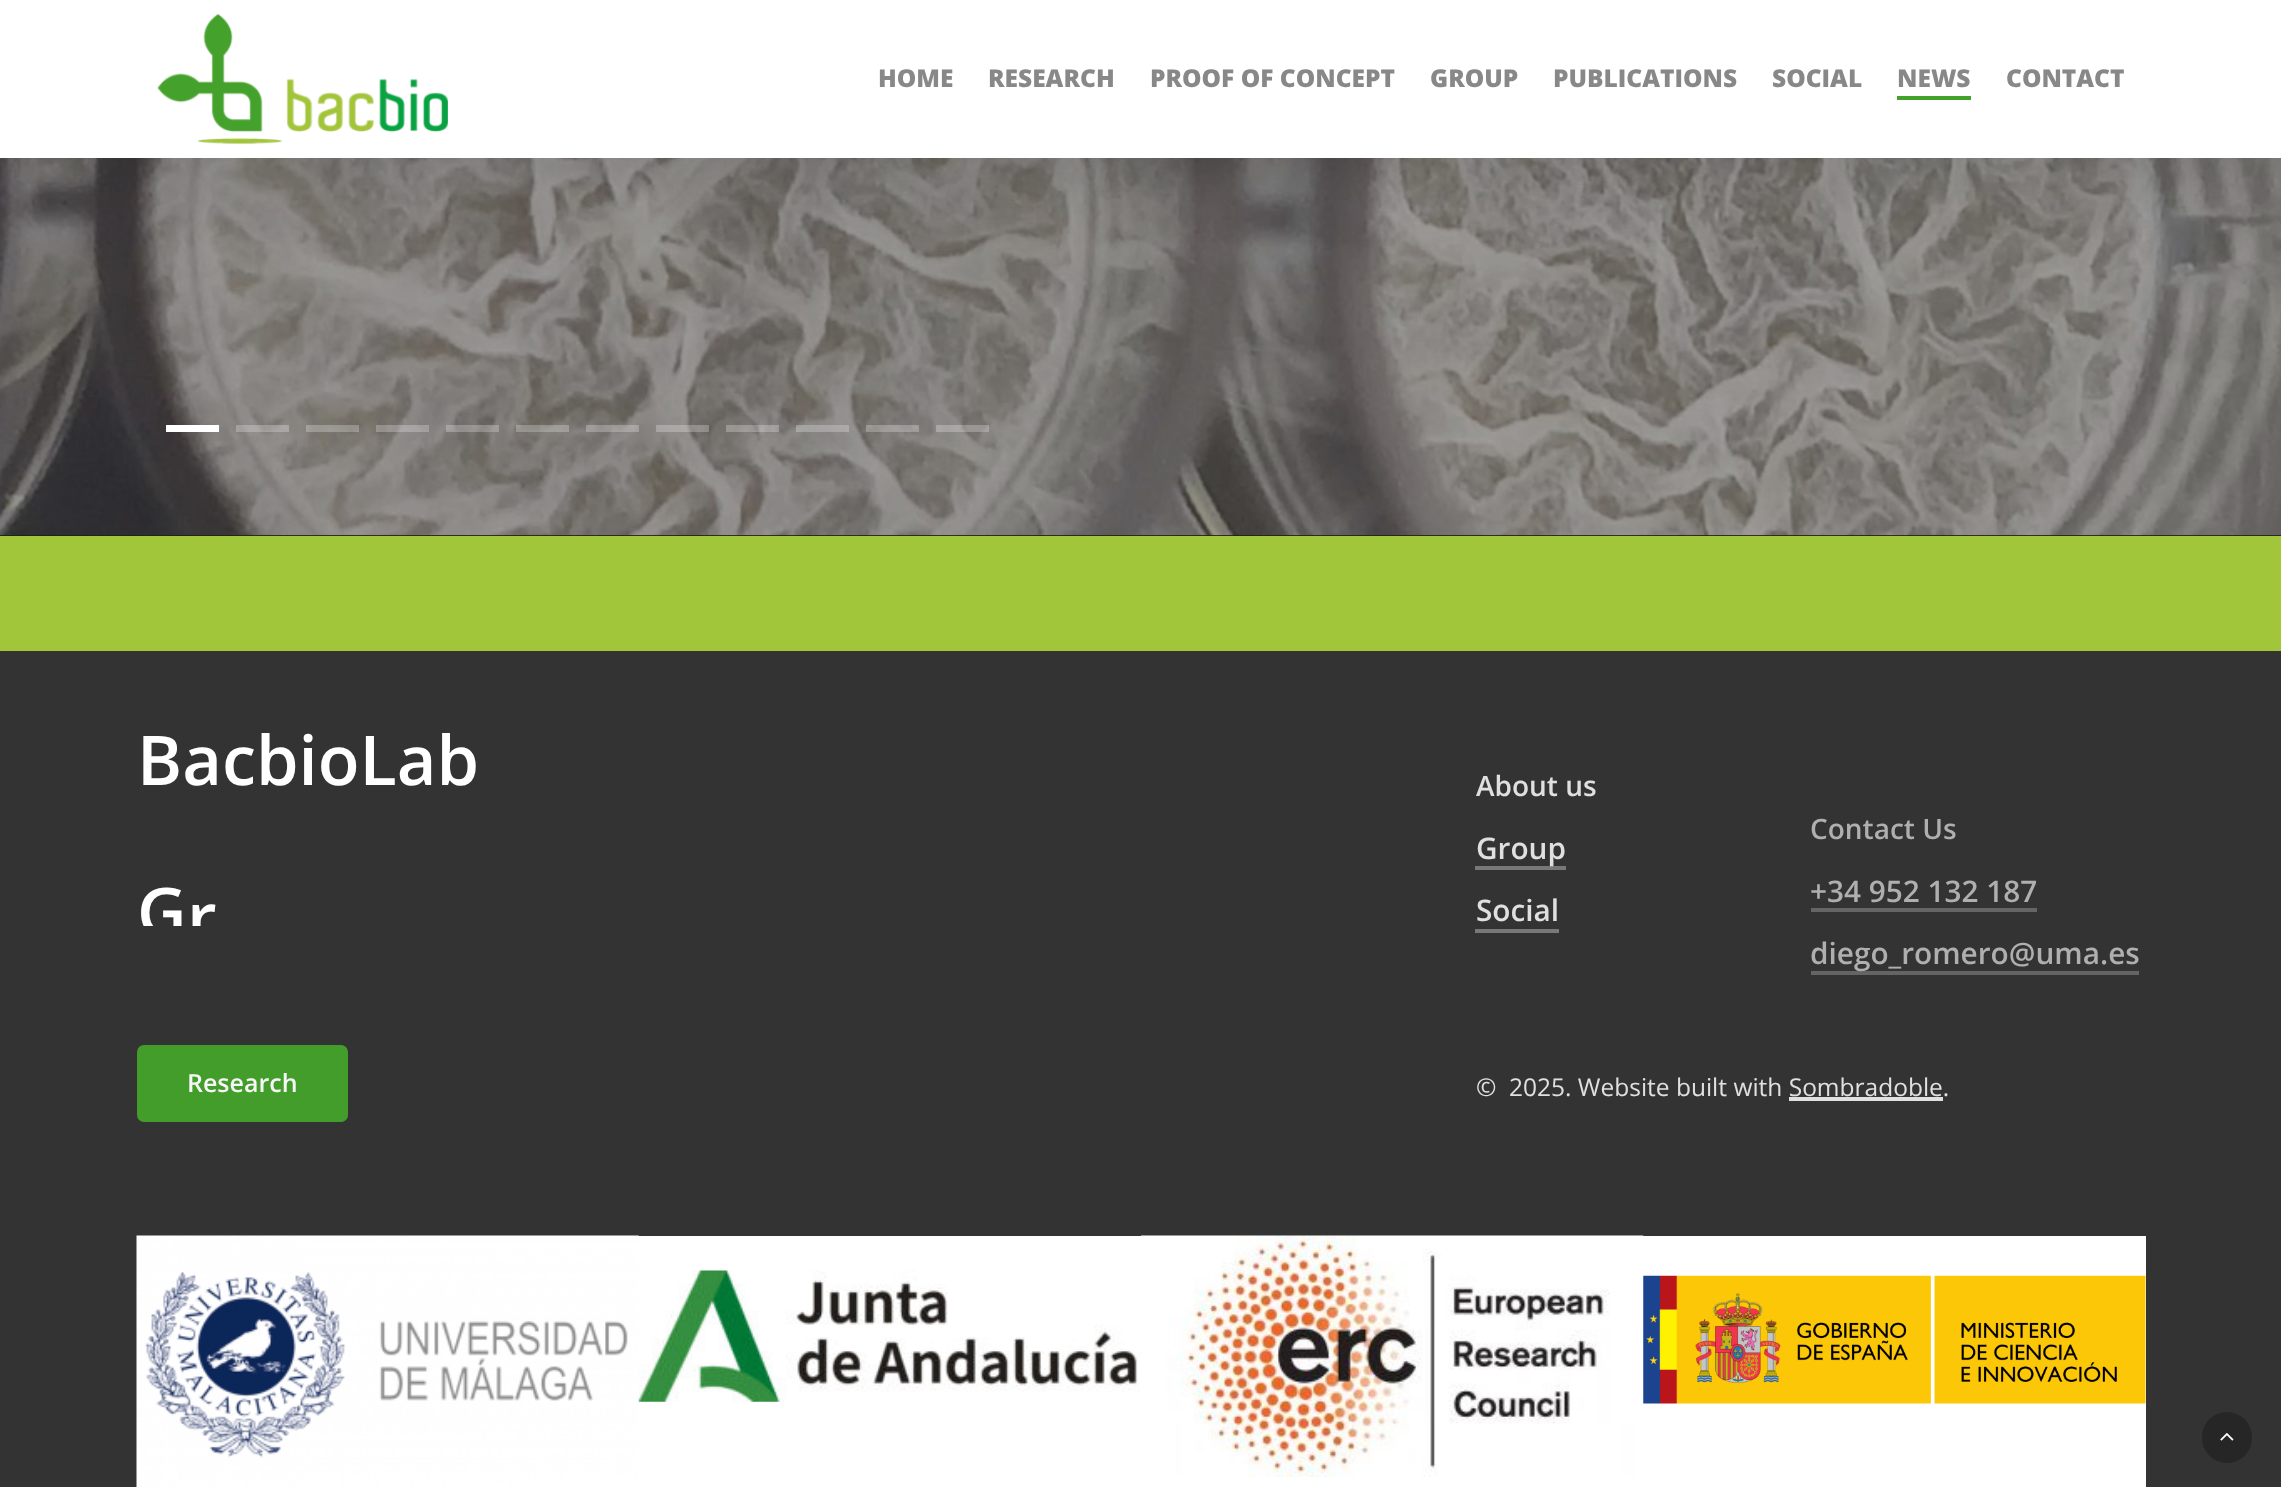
async function draw(canvas) {
	canvas.width = 2281;
	canvas.height = 1487;
	const c = canvas.getContext('2d');
	c.miterLimit = 4;
	c.fontKerning = 'normal';
	async function loadImage(src) {
		const img = new Image();
		img.src = src;
		await img.decode();
		return img;
	}

	c.fillStyle = '#a2c639';
	c.fillRect(0, 0, 2281, 1487);
	c.fillStyle = '#1f1f1f';
	c.fillRect(0, 535, 2281, 1);
	c.drawImage(await loadImage('img2.png'), 0, 158, 2281, 378);
	c.fillStyle = '#00000026';
	c.filter = 'blur(39.5px)';
	c.beginPath();
	c.rect(0, 5, 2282, 158);
	c.fill();
	c.filter = 'none';
	c.fillStyle = '#fff';
	c.fillRect(0, 0, 2281, 158);
	c.drawImage(await loadImage('img1.png'), 157, 13, 291, 131);
	c.font = '800 24.5px Open Sans';
	c.fillStyle = '#888';
	for (const [text, x, y] of [
		['HOME', 878, 87],
		['RESEARCH', 988, 87],
		['PROOF OF CONCEPT', 1150, 87],
		['GROUP', 1430, 87],
		['PUBLICATIONS', 1553, 87],
		['SOCIAL', 1772, 87],
		['NEWS', 1897, 87],
	]) {
		c.fillText(text, x, y);
	}
	c.fillStyle = '#44a12b';
	c.fillRect(1897, 96, 74, 4);
	c.fillStyle = '#888';
	c.fillText('CONTACT', 2006, 87);
	for (const [x, y, w, h, color] of [
		[166, 425, 53, 7, '#fff'],
		[236, 425, 53, 7, '#ffffff40'],
		[306, 425, 53, 7, '#ffffff40'],
		[376, 425, 53, 7, '#ffffff40'],
		[446, 425, 53, 7, '#ffffff40'],
		[516, 425, 53, 7, '#ffffff40'],
		[586, 425, 53, 7, '#ffffff40'],
		[656, 425, 53, 7, '#ffffff40'],
		[726, 425, 53, 7, '#ffffff40'],
		[796, 425, 53, 7, '#ffffff40'],
		[866, 425, 53, 7, '#ffffff40'],
		[936, 425, 53, 7, '#ffffff40'],
		[0, 651, 2281, 836, '#333'],
	]) {
		c.fillStyle = color;
		c.fillRect(x, y, w, h);
	}
	c.font = '600 68.5px Open Sans';
	c.fillStyle = '#fff';
	c.fillText('BacbioLab', 137, 785);
	c.save();
	c.beginPath();
	c.rect(133, 844, 184, 82);
	c.clip();
	c.fillText('G', 137, 937);
	c.fillText('r', 187, 942);
	c.restore();
	c.font = '600 28px Open Sans';
	c.fillStyle = '#e0e0e0';
	c.fillText('About us', 1476, 796);
	c.font = '600 29.75px Open Sans';
	c.fillText('Group', 1476, 859);
	c.fillStyle = '#bdbdbd80';
	c.fillRect(1475, 866, 91, 4);
	c.fillStyle = '#e0e0e0';
	c.fillText('Social', 1476, 921);
	c.fillStyle = '#787878';
	c.fillRect(1475, 929, 84, 4);
	c.font = '600 28px Open Sans';
	c.fillStyle = '#afafaf';
	c.fillText('Contact Us', 1810, 839);
	c.font = '600 29.75px Open Sans';
	c.fillText('+34 952 132 187', 1810, 902);
	c.fillStyle = '#656565';
	c.fillRect(1811, 908, 226, 4);
	c.fillStyle = '#afafaf';
	c.fillText('diego_romero@uma.es', 1810, 964);
	c.fillStyle = '#96969680';
	c.fillRect(1811, 971, 328, 4);
	c.fillStyle = '#439d2b';
	c.beginPath();
	c.roundRect(137, 1045, 211, 77, 7);
	c.fill();
	c.font = '600 25px Open Sans';
	c.fillStyle = '#f7f7f7';
	c.fillText('Research', 187, 1092);
	c.font = '24.5px Open Sans';
	c.fillStyle = '#e0e0e0';
	c.fillText('©', 1476, 1096);
	c.fillText('2025. Website built with Sombradoble.', 1509, 1096);
	c.fillRect(1789, 1097, 154, 4);
	c.fillStyle = '#fff';
	c.fillRect(638, 1236, 1508, 251);
	c.drawImage(await loadImage('img3.png'), 136, 1235, 503, 252);
	c.drawImage(await loadImage('img4.png'), 638, 1270, 503, 132);
	c.drawImage(await loadImage('img5.png'), 1141, 1235, 503, 242);
	c.drawImage(await loadImage('img6.png'), 1643, 1275, 503, 129);
	c.fillStyle = '#262626';
	c.beginPath();
	c.roundRect(2202, 1412, 50, 51, 25);
	c.fill();
	c.drawImage(await loadImage('img7.png'), 2220, 1433, 14, 8);
}

draw(document.querySelector('canvas'));
